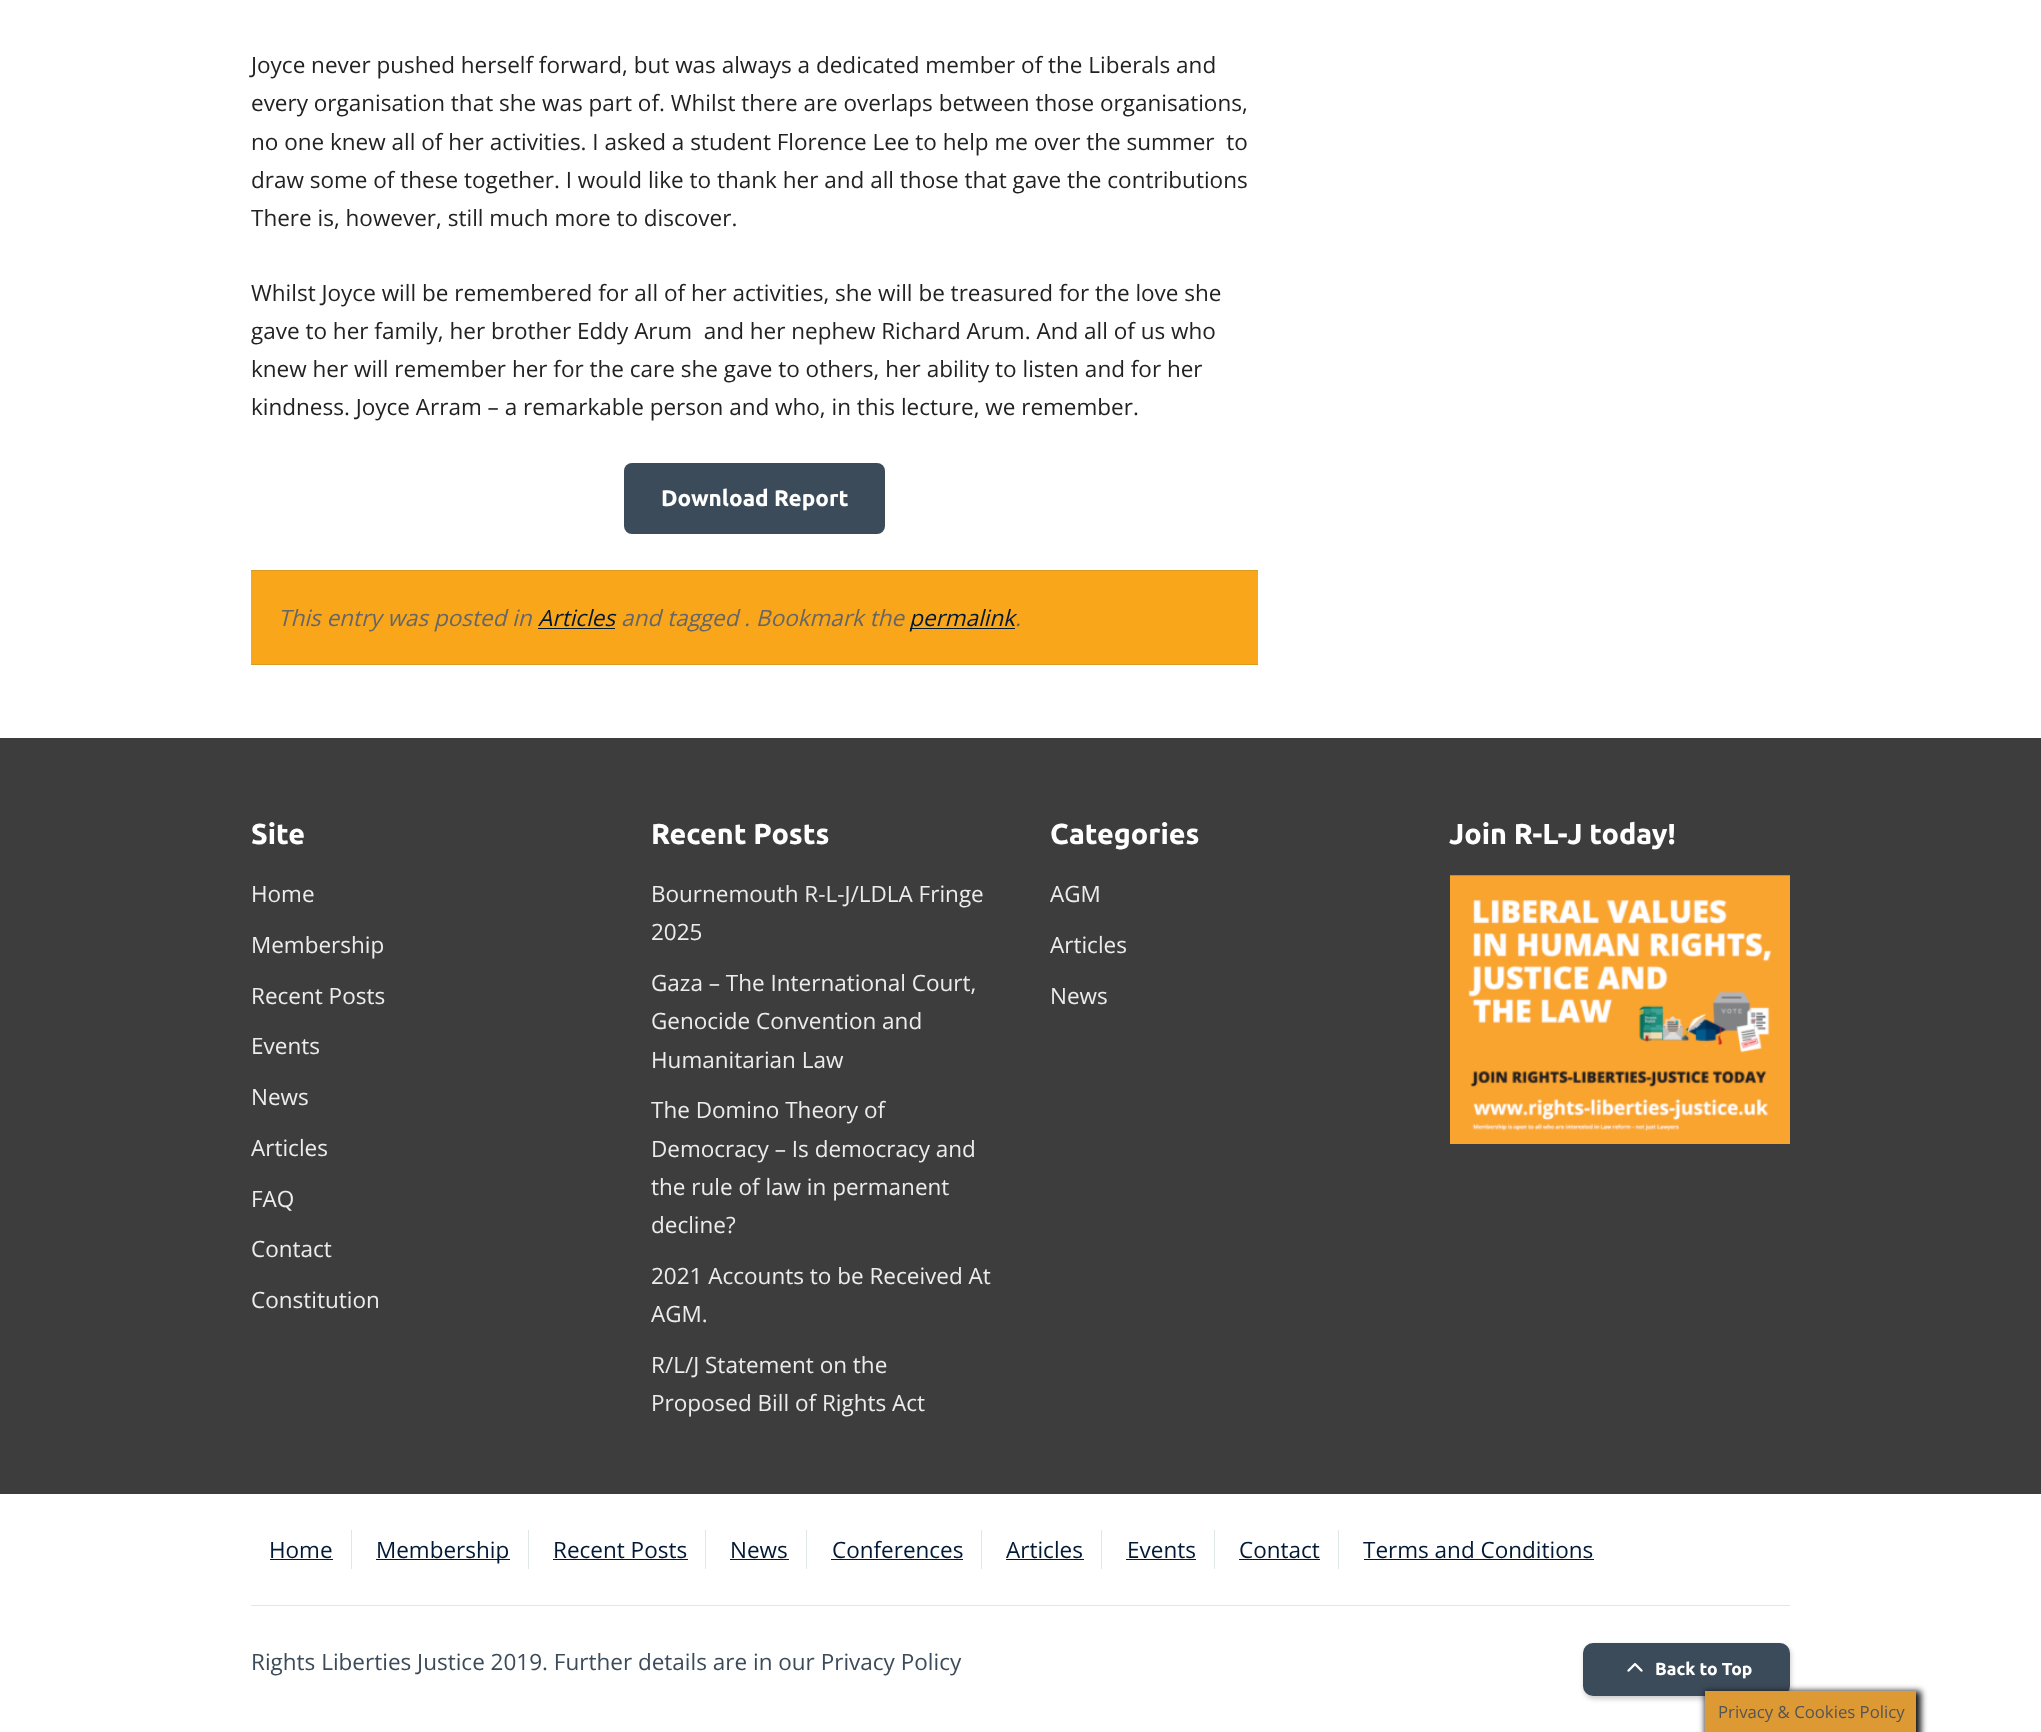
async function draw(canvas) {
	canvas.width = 2041;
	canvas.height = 1732;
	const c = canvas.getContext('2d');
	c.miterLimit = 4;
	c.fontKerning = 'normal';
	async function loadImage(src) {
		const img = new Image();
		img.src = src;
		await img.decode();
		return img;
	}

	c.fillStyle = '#fff';
	c.fillRect(0, 0, 2041, 1732);
	c.font = '22.5px Open Sans';
	c.fillStyle = '#222';
	for (const [text, x, y] of [
		['Joyce never pushed herself forward, but was always a dedicated member of the Liberals and', 251, 73],
		['every organisation that she was part of. Whilst there are overlaps between those organisations,', 251, 111],
		['no one knew all of her activities. I asked a student Florence Lee to help me over the summer  to', 251, 150],
		['draw some of these together. I would like to thank her and all those that gave the contributions', 251, 188],
		['There is, however, still much more to discover.', 251, 226],
		['Whilst Joyce will be remembered for all of her activities, she will be treasured for the love she', 251, 301],
		['gave to her family, her brother Eddy Arum  and her nephew Richard Arum. And all of us who', 251, 339],
		['knew her will remember her for the care she gave to others, her ability to listen and for her', 251, 377],
		['kindness. Joyce Arram – a remarkable person and who, in this lecture, we remember.', 251, 415],
	]) {
		c.fillText(text, x, y);
	}
	c.fillStyle = '#3c4b5a';
	c.beginPath();
	c.roundRect(624, 463, 261, 71, 8);
	c.fill();
	c.font = 'bold 22.5px Ubuntu';
	c.fillStyle = '#fff';
	c.fillText('Download Report', 661, 506);
	for (const [x, y, w, h, color] of [
		[251, 571, 1007, 93, '#faa61a'],
		[251, 570, 1007, 1, '#da9b1f'],
		[251, 664, 1007, 1, '#da9b1f'],
	]) {
		c.fillStyle = color;
		c.fillRect(x, y, w, h);
	}
	c.font = 'italic 22.5px Open Sans';
	c.fillStyle = '#666';
	c.fillText('This entry was posted in', 278, 626);
	c.fillStyle = '#011935';
	c.fillText('Articles', 538, 626);
	c.fillRect(538, 628, 77, 1);
	c.fillStyle = '#666';
	c.fillText('and tagged . Bookmark the', 621, 626);
	c.fillStyle = '#011935';
	c.fillRect(910, 628, 105, 1);
	c.fillText('permalink', 909, 626);
	c.fillStyle = '#666';
	c.fillText('.', 1015, 626);
	c.fillStyle = '#3d3d3d';
	c.fillRect(0, 738, 2041, 756);
	c.font = 'bold 28.75px Ubuntu';
	c.fillStyle = '#fff';
	c.fillText('Site', 251, 844);
	c.font = '22.5px Open Sans';
	c.fillStyle = '#ececec';
	for (const [text, x, y] of [
		['Home', 251, 902],
		['Membership', 251, 953],
		['Recent Posts', 251, 1004],
		['Events', 251, 1054],
		['News', 251, 1105],
		['Articles', 251, 1156],
		['FAQ', 251, 1207],
		['Contact', 251, 1257],
		['Constitution', 251, 1308],
	]) {
		c.fillText(text, x, y);
	}
	c.font = 'bold 28.75px Ubuntu';
	c.fillStyle = '#fff';
	c.fillText('Recent Posts', 651, 844);
	c.font = '22.5px Open Sans';
	c.fillStyle = '#ececec';
	for (const [text, x, y] of [
		['Bournemouth R-L-J/LDLA Fringe', 651, 902],
		['2025', 651, 940],
		['Gaza – The International Court,', 651, 991],
		['Genocide Convention and', 651, 1029],
		['Humanitarian Law', 651, 1068],
		['The Domino Theory of', 651, 1118],
		['Democracy – Is democracy and', 651, 1157],
		['the rule of law in permanent', 651, 1195],
		['decline?', 651, 1233],
		['2021 Accounts to be Received At', 651, 1284],
		['AGM.', 651, 1322],
		['R/L/J Statement on the', 651, 1373],
		['Proposed Bill of Rights Act', 651, 1411],
	]) {
		c.fillText(text, x, y);
	}
	c.font = 'bold 28.75px Ubuntu';
	c.fillStyle = '#fff';
	c.fillText('Categories', 1050, 844);
	c.font = '22.5px Open Sans';
	c.fillStyle = '#ececec';
	for (const [text, x, y] of [
		['AGM', 1050, 902],
		['Articles', 1050, 953],
		['News', 1050, 1004],
	]) {
		c.fillText(text, x, y);
	}
	c.font = 'bold 28.75px Ubuntu';
	c.fillStyle = '#fff';
	c.fillText('Join R-L-J today!', 1449, 844);
	c.drawImage(await loadImage('img1.png'), 1450, 875, 340, 269);
	c.fillStyle = '#dee9e6';
	c.fillRect(251, 1605, 1539, 1);
	c.fillRect(351, 1530, 1, 39);
	c.font = '22.5px Open Sans';
	c.fillStyle = '#011935';
	c.fillText('Home', 269, 1558);
	for (const [x, y, w, h, color] of [
		[270, 1559, 63, 1, '#011935'],
		[528, 1530, 1, 39, '#dee9e6'],
		[376, 1559, 134, 1, '#011935'],
	]) {
		c.fillStyle = color;
		c.fillRect(x, y, w, h);
	}
	c.fillText('Membership', 376, 1558);
	c.fillStyle = '#dee9e6';
	c.fillRect(705, 1530, 1, 39);
	c.fillStyle = '#011935';
	c.fillText('Recent Posts', 553, 1558);
	c.fillRect(553, 1559, 135, 1);
	c.fillStyle = '#dee9e6';
	c.fillRect(806, 1530, 1, 39);
	c.fillStyle = '#011935';
	c.fillText('News', 730, 1558);
	c.fillRect(730, 1559, 59, 1);
	c.fillStyle = '#dee9e6';
	c.fillRect(981, 1530, 1, 39);
	c.fillStyle = '#011935';
	c.fillText('Conferences', 832, 1558);
	c.fillRect(831, 1559, 132, 1);
	c.fillStyle = '#dee9e6';
	c.fillRect(1101, 1530, 1, 39);
	c.fillStyle = '#011935';
	c.fillText('Articles', 1006, 1558);
	c.fillRect(1006, 1559, 78, 1);
	c.fillStyle = '#dee9e6';
	c.fillRect(1214, 1530, 1, 39);
	c.fillStyle = '#011935';
	c.fillText('Events', 1127, 1558);
	c.fillRect(1126, 1559, 70, 1);
	c.fillStyle = '#dee9e6';
	c.fillRect(1338, 1530, 1, 39);
	c.fillStyle = '#011935';
	c.fillText('Contact', 1239, 1558);
	c.fillRect(1239, 1559, 81, 1);
	c.fillText('Terms and Conditions', 1363, 1558);
	c.fillRect(1364, 1559, 230, 1);
	c.fillStyle = '#3c4b5a';
	c.fillText('Rights Liberties Justice 2019. Further details are in our Privacy Policy', 251, 1670);
	c.fillStyle = '#00000033';
	c.filter = 'blur(2.5px)';
	c.beginPath();
	c.roundRect(1584, 1645, 207, 54, 10);
	c.fill();
	c.filter = 'none';
	c.fillStyle = '#3c4b5a';
	c.beginPath();
	c.roundRect(1583, 1643, 207, 53, 10);
	c.fill();
	c.drawImage(await loadImage('img2.png'), 1627, 1663, 16, 9);
	c.font = 'bold 17.5px Ubuntu';
	c.fillStyle = '#fff';
	c.fillText('Back to Top', 1655, 1675);
	c.fillStyle = '#161616';
	c.filter = 'blur(3px)';
	c.beginPath();
	c.rect(1705, 1691, 216, 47);
	c.fill();
	c.filter = 'none';
	c.fillStyle = '#d93';
	c.fillRect(1705, 1691, 211, 41);
	c.font = '16.75px Open Sans';
	c.fillStyle = '#545454';
	c.fillText('Privacy & Cookies Policy', 1718, 1718);
}

draw(document.querySelector('canvas'));
